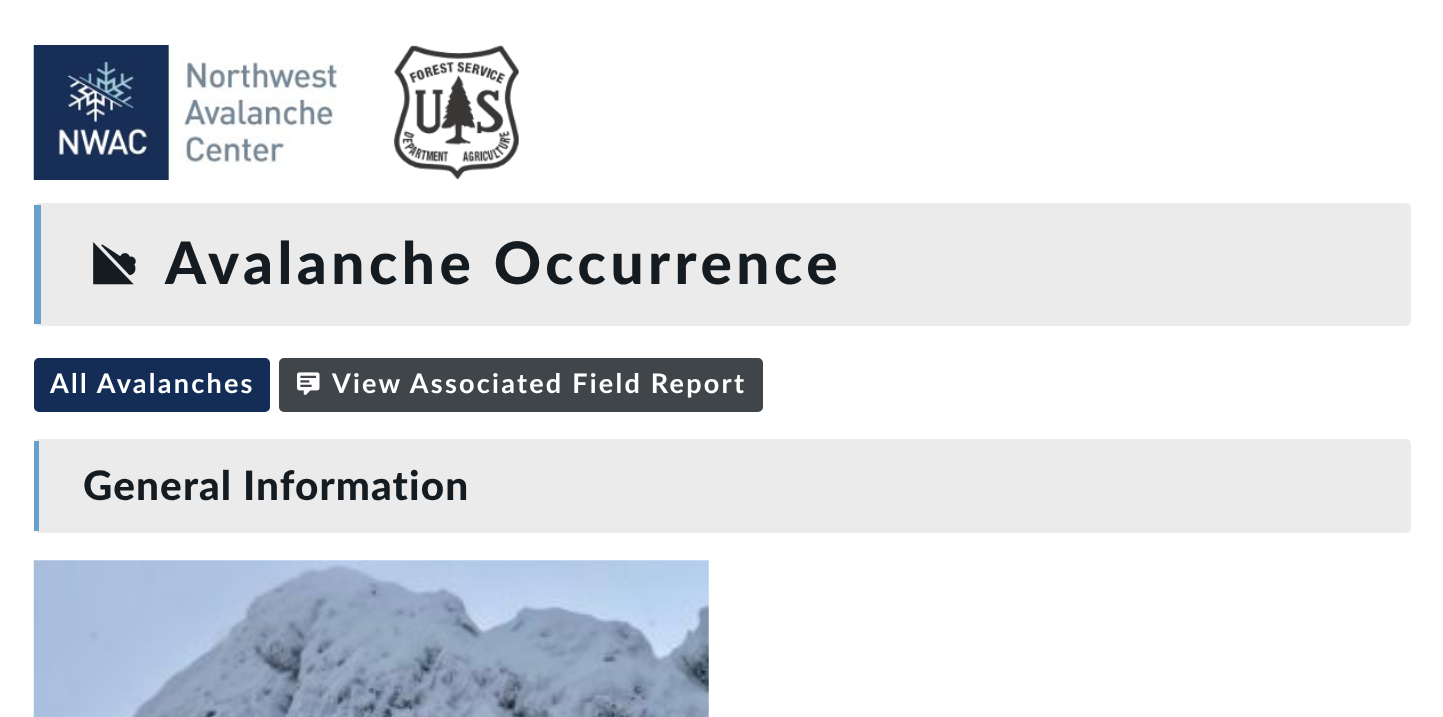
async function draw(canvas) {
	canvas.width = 1443;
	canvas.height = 717;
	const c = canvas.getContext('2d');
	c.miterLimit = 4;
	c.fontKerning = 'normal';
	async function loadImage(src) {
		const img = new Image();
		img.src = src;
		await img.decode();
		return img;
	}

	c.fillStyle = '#fff';
	c.fillRect(0, 0, 1443, 717);
	c.drawImage(await loadImage('img1.png'), 33, 45, 486, 135);
	c.fillStyle = '#ebebeb';
	c.beginPath();
	c.roundRect(34, 203, 1377, 123, 5);
	c.fill();
	c.fillStyle = '#68a0cc';
	c.fillRect(34, 205, 7, 119);
	c.drawImage(await loadImage('img2.png'), 93, 242, 43, 43);
	c.letterSpacing = '4.5px';
	c.font = '900 58.5px Lato';
	c.fillStyle = '#141b21';
	c.fillText('Avalanche Occurrence', 165, 284);
	c.fillStyle = '#142d56';
	c.beginPath();
	c.roundRect(35, 359, 234, 52, 4);
	c.fill();
	c.strokeStyle = '#142d56';
	c.lineWidth = 2;
	c.stroke();
	c.letterSpacing = '2.25px';
	c.font = 'bold 27px Lato';
	c.fillStyle = '#fff';
	c.fillText('All Avalanches', 50, 393);
	c.fillStyle = '#40454a';
	c.beginPath();
	c.roundRect(280, 359, 482, 52, 4);
	c.fill();
	c.strokeStyle = '#40454a';
	c.stroke();
	c.drawImage(await loadImage('img3.png'), 297, 372, 23, 23);
	c.fillStyle = '#fff';
	c.fillText('View Associated Field Report', 332, 393);
	c.fillStyle = '#ebebeb';
	c.beginPath();
	c.roundRect(34, 439, 1377, 94, 5);
	c.fill();
	c.fillStyle = '#68a0cc';
	c.fillRect(34, 441, 5, 90);
	c.letterSpacing = '1.1px';
	c.font = '900 40.5px Lato';
	c.fillStyle = '#141b21';
	c.fillText('General Information', 83, 500);
	c.drawImage(await loadImage('img4.png'), 33, 560, 676, 157);
}

draw(document.querySelector('canvas'));
